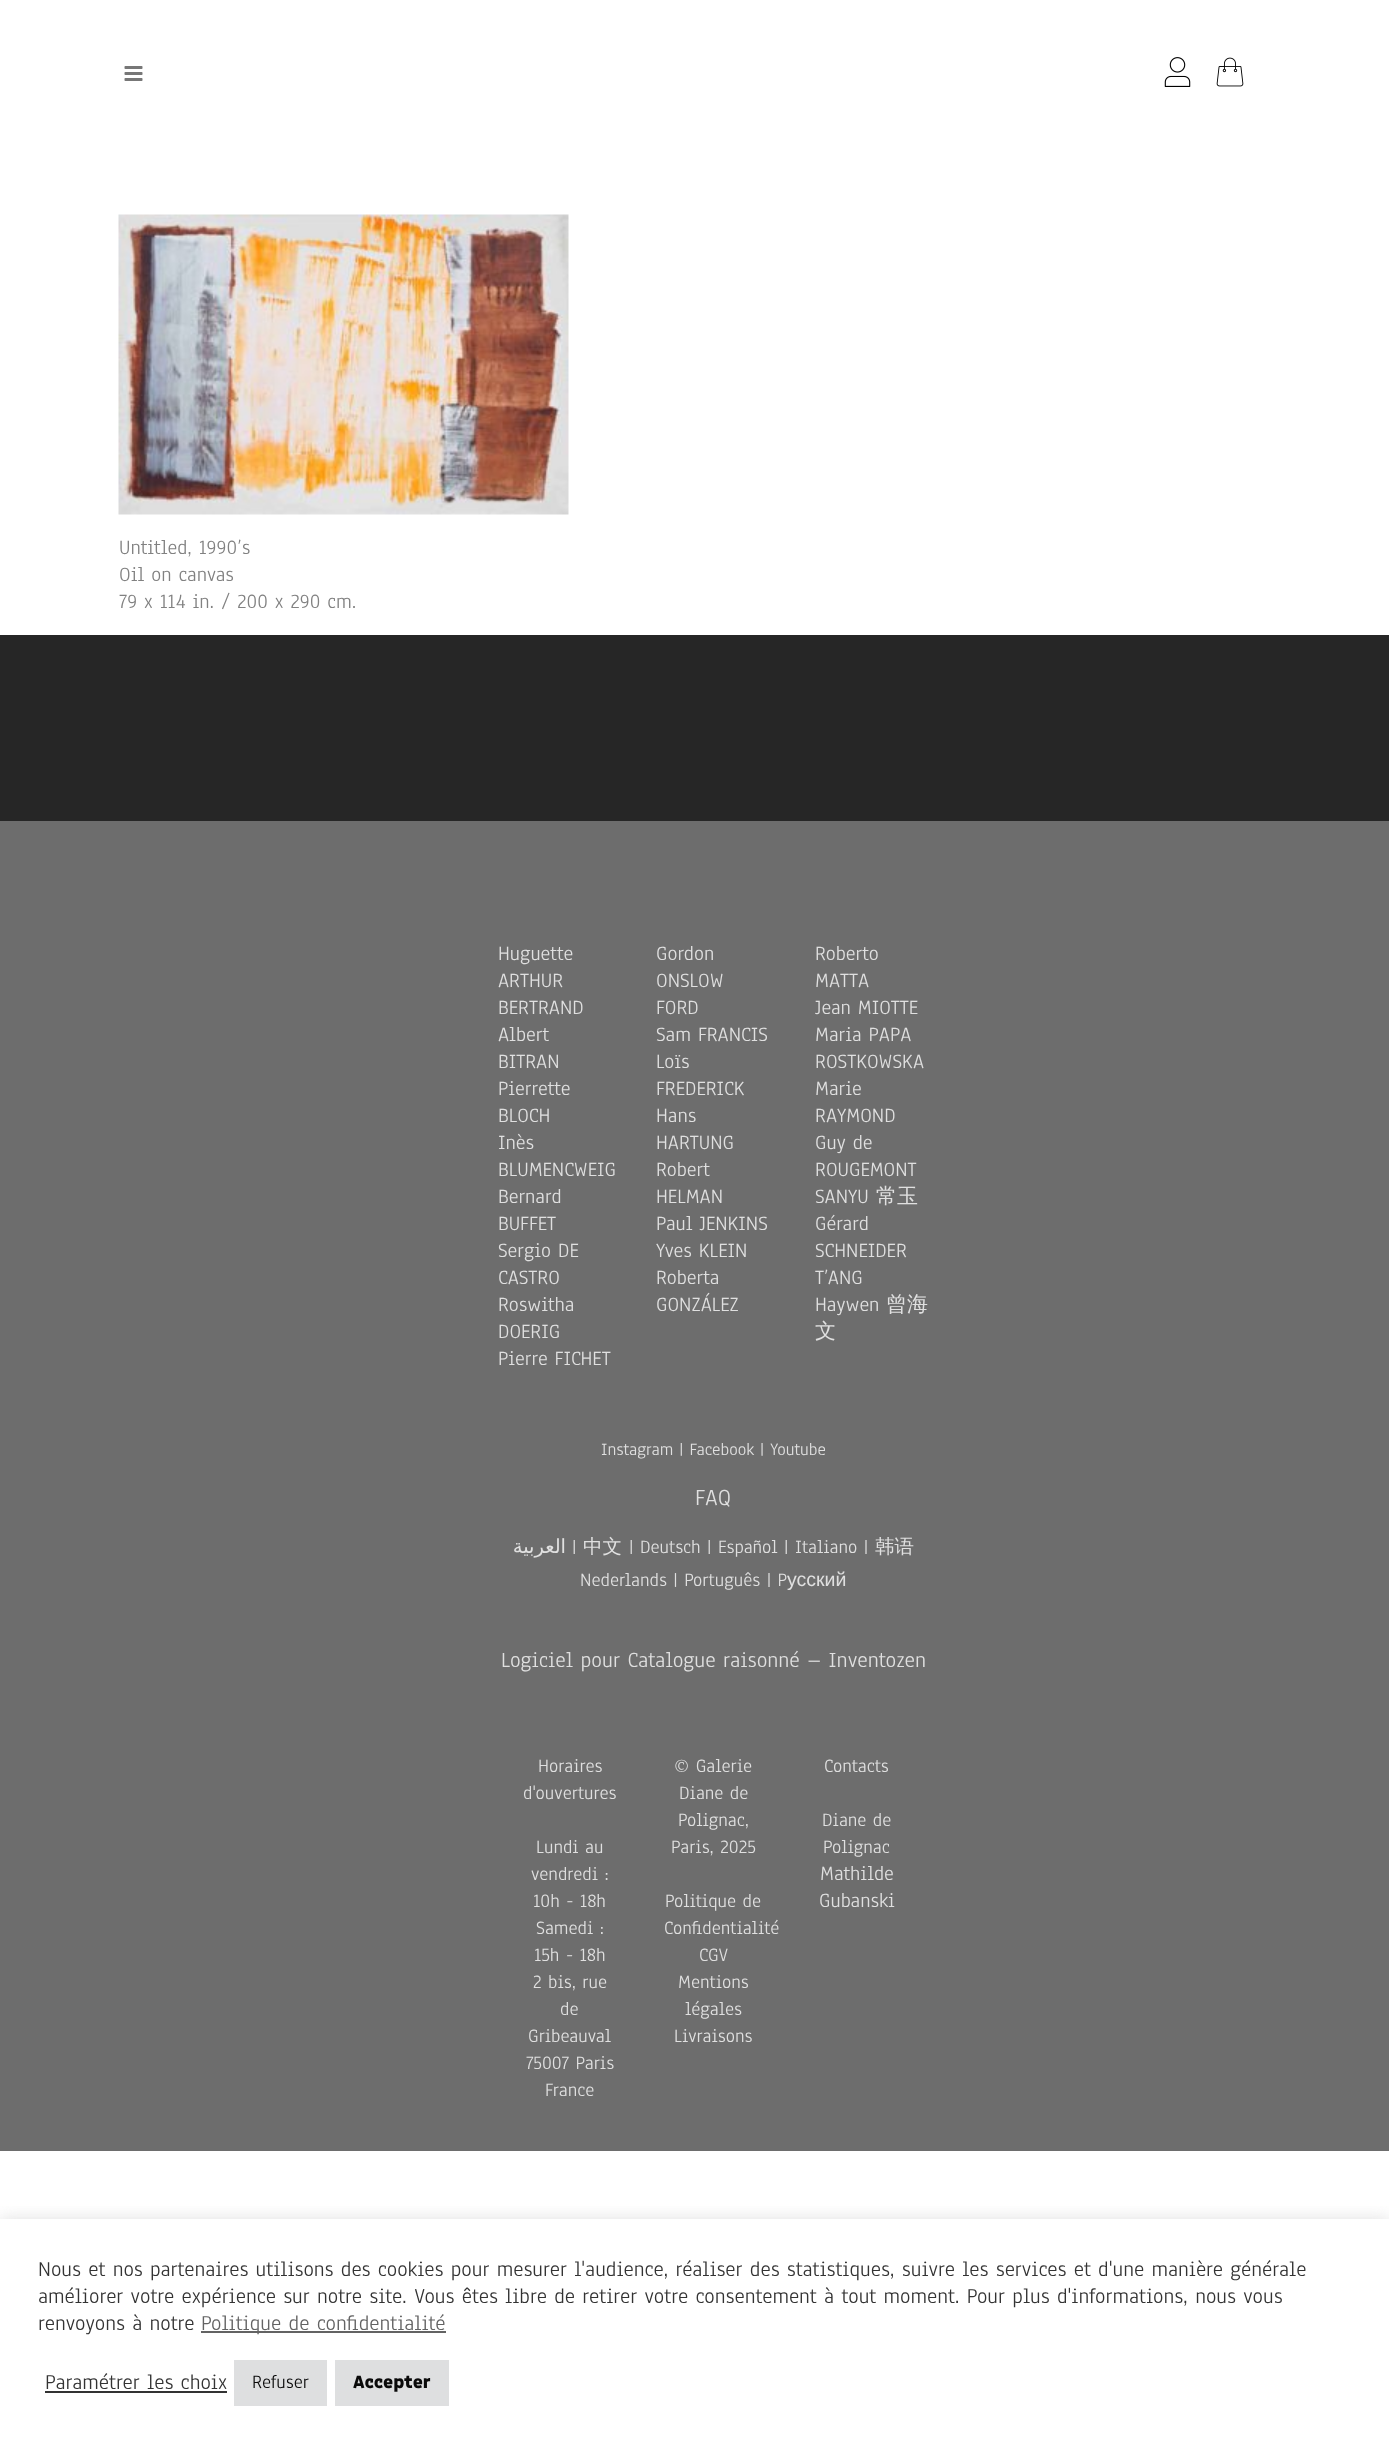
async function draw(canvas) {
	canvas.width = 1389;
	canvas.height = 2450;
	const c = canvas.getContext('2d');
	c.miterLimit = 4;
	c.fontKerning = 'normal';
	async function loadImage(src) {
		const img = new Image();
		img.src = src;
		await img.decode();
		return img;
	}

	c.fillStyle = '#fff';
	c.fillRect(0, 0, 1389, 2450);
	c.drawImage(await loadImage('img1.png'), 124, 66, 19, 15);
	c.drawImage(await loadImage('img2.png'), 1164, 57, 27, 30);
	c.drawImage(await loadImage('img3.png'), 1216, 57, 28, 30);
	c.drawImage(await loadImage('img4.png'), 118, 214, 451, 301);
	c.font = '21px Anaheim';
	c.fillStyle = '#818181';
	for (const [text, x, y] of [
		['Untitled, 1990’s', 119, 554],
		['Oil on canvas', 119, 581],
		['79 x 114 in. / 200 x 290 cm.', 119, 608],
	]) {
		c.fillText(text, x, y);
	}
	c.fillStyle = '#262626';
	c.fillRect(0, 635, 1389, 186);
	c.fillStyle = '#6d6d6d';
	c.fillRect(0, 821, 1389, 1330);
	c.fillStyle = '#e0e0e0';
	for (const [text, x, y] of [
		['Huguette', 498, 960],
		['ARTHUR', 498, 987],
		['BERTRAND', 498, 1014],
		['Albert', 498, 1041],
		['BITRAN', 498, 1068],
		['Pierrette', 498, 1095],
		['BLOCH', 498, 1122],
		['Inès', 498, 1149],
		['BLUMENCWEIG', 498, 1176],
		['Bernard', 498, 1203],
		['BUFFET', 498, 1230],
		['Sergio DE', 498, 1257],
		['CASTRO', 498, 1284],
		['Roswitha', 498, 1311],
		['DOERIG', 498, 1338],
		['Pierre FICHET', 498, 1365],
		['Gordon', 656, 960],
		['ONSLOW', 656, 987],
		['FORD', 656, 1014],
		['Sam FRANCIS', 656, 1041],
		['Loïs', 656, 1068],
		['FREDERICK', 656, 1095],
		['Hans', 656, 1122],
		['HARTUNG', 656, 1149],
		['Robert', 656, 1176],
		['HELMAN', 656, 1203],
		['Paul JENKINS', 656, 1230],
		['Yves KLEIN', 656, 1257],
		['Roberta', 656, 1284],
		['GONZÁLEZ', 656, 1311],
		['Roberto', 815, 960],
		['MATTA', 815, 987],
		['Jean MIOTTE', 815, 1014],
		['Maria PAPA', 815, 1041],
		['ROSTKOWSKA', 815, 1068],
		['Marie', 815, 1095],
		['RAYMOND', 815, 1122],
		['Guy de', 815, 1149],
		['ROUGEMONT', 815, 1176],
		['SANYU', 815, 1203],
	]) {
		c.fillText(text, x, y);
	}
	c.font = '500 21px WenQuanYi Zen Hei';
	c.fillText('常玉', 876, 1203);
	c.font = '21px Anaheim';
	for (const [text, x, y] of [
		['Gérard', 815, 1230],
		['SCHNEIDER', 815, 1257],
		['T’ANG', 815, 1284],
		['Haywen', 815, 1311],
	]) {
		c.fillText(text, x, y);
	}
	c.font = '500 21px WenQuanYi Zen Hei';
	c.fillText('曾海', 886, 1311);
	c.fillText('文', 815, 1338);
	c.font = '18px Anaheim';
	c.fillText('Instagram | Facebook | Youtube', 601, 1455);
	c.font = '24px Anaheim';
	c.fillText('FAQ', 695, 1505);
	c.direction = 'rtl';
	c.font = '19.5px DejaVu Sans';
	c.fillText('العربية', 566, 1553);
	c.direction = 'ltr';
	c.font = '19.5px Anaheim';
	c.fillText('|', 572, 1553);
	c.font = '500 19.5px WenQuanYi Zen Hei';
	c.fillText('中文', 583, 1553);
	c.font = '19.5px Anaheim';
	c.fillText('| Deutsch | Español | Italiano |', 629, 1553);
	c.font = '500 19.5px WenQuanYi Zen Hei';
	c.fillText('韩语', 875, 1553);
	c.font = '19.5px Anaheim';
	c.fillText('Nederlands | Português | P', 580, 1586);
	c.font = '19.5px Liberation Sans';
	c.fillText('усский', 787, 1586);
	c.font = '22.5px Anaheim';
	c.fillText('Logiciel pour Catalogue raisonné – Inventozen', 501, 1667);
	c.font = '19.5px Anaheim';
	for (const [text, x, y] of [
		['Horaires', 538, 1772],
		['d\'ouvertures', 523, 1799],
		['Lundi au', 536, 1853],
		['vendredi :', 531, 1880],
		['10h - 18h', 533, 1907],
		['Samedi :', 536, 1934],
		['15h - 18h', 534, 1961],
		['2 bis, rue', 533, 1988],
		['de', 560, 2015],
		['Gribeauval', 528, 2042],
		['75007 Paris', 526, 2069],
		['France', 545, 2096],
		['© Galerie', 674, 1772],
		['Diane de', 679, 1799],
		['Polignac,', 678, 1826],
		['Paris, 2025', 671, 1853],
		['Politique de', 665, 1907],
		['Confidentialité', 664, 1934],
		['CGV', 699, 1961],
		['Mentions', 678, 1988],
		['légales', 685, 2015],
		['Livraisons', 674, 2042],
		['Contacts', 824, 1772],
		['Diane de', 822, 1826],
		['Polignac', 823, 1853],
	]) {
		c.fillText(text, x, y);
	}
	c.font = '21px Anaheim';
	c.fillText('Mathilde', 820, 1880);
	c.fillText('Gubanski', 819, 1907);
	c.save();
	c.beginPath();
	c.rect(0, 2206, 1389, 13);
	c.clip();
	c.fillStyle = '#acabab4d';
	c.filter = 'blur(7.5px)';
	c.beginPath();
	c.rect(0, 2217, 1389, 233);
	c.fill();
	c.filter = 'none';
	c.restore();
	c.font = '22px Anaheim';
	c.fillStyle = '#333';
	for (const [text, x, y] of [
		['Nous et nos partenaires utilisons des cookies pour mesurer l\'audience, réaliser des statistiques, suivre les services et d\'une manière générale', 38, 2276],
		['améliorer votre expérience sur notre site. Vous êtes libre de retirer votre consentement à tout moment. Pour plus d\'informations, nous vous', 38, 2303],
		['renvoyons à notre', 38, 2330],
	]) {
		c.fillText(text, x, y);
	}
	c.fillStyle = '#636363';
	c.fillRect(201, 2331, 245, 2);
	c.fillText('Politique de confidentialité', 201, 2330);
	c.fillStyle = '#333';
	c.fillText('Paramétrer les choix', 45, 2389);
	c.fillRect(45, 2391, 182, 2);
	c.fillStyle = '#dedfe0';
	c.fillRect(234, 2360, 93, 46);
	c.font = '19.5px Anaheim';
	c.fillStyle = '#0a0a0a';
	c.fillText('Refuser', 252, 2388);
	c.fillStyle = '#dedfe0';
	c.fillRect(335, 2360, 114, 46);
	c.font = '800 19.5px Anaheim';
	c.fillStyle = '#0a0a0a';
	c.fillText('Accepter', 353, 2388);
}

draw(document.querySelector('canvas'));
